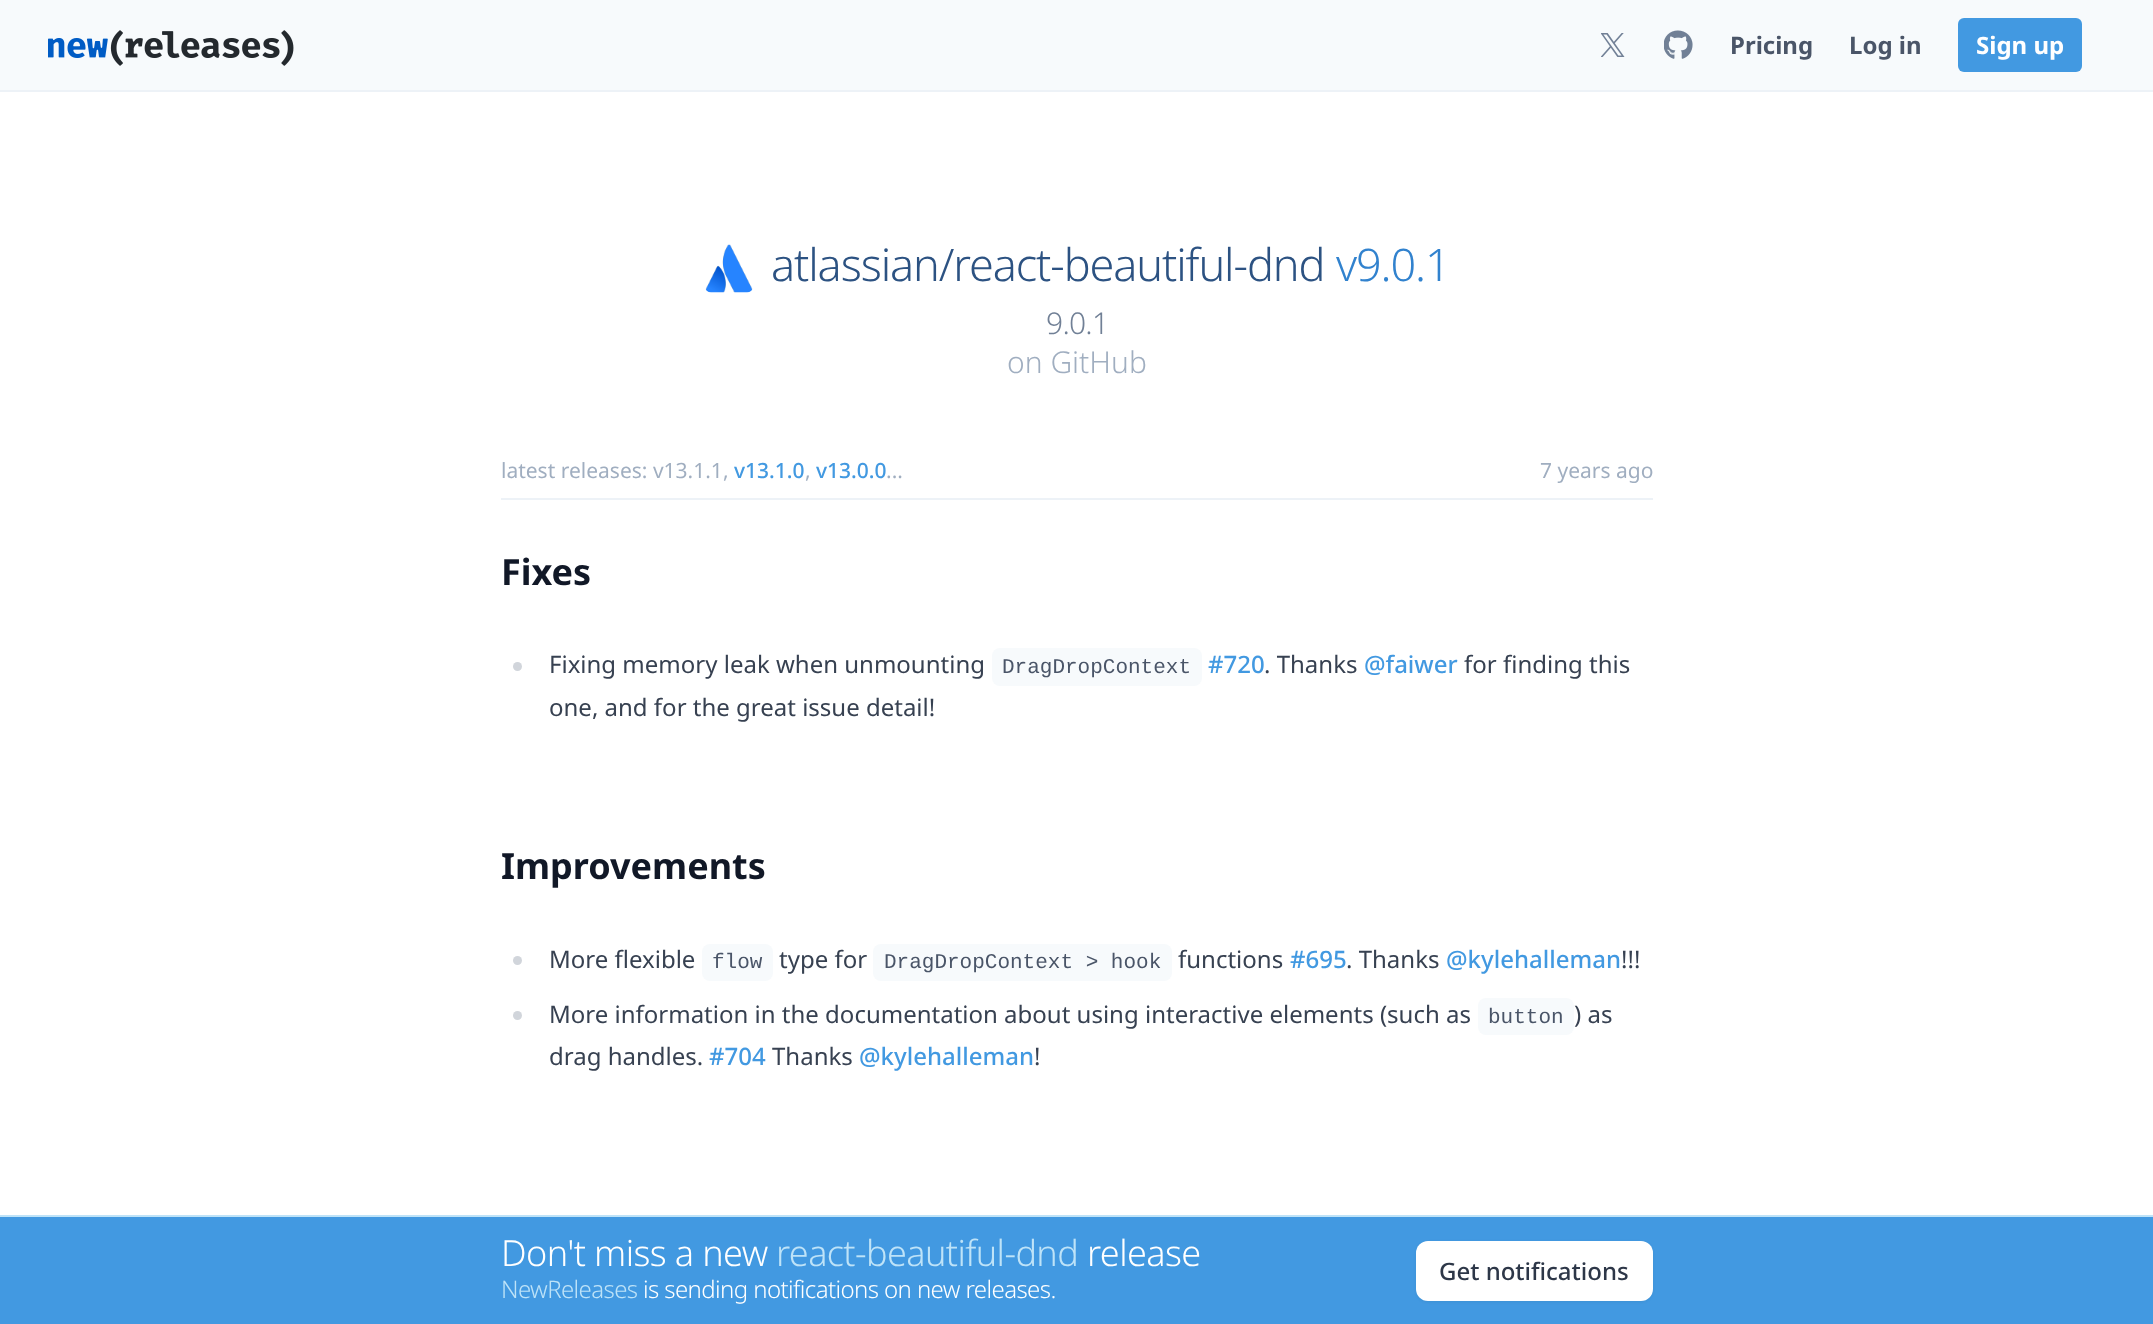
async function draw(canvas) {
	canvas.width = 2153;
	canvas.height = 1324;
	const c = canvas.getContext('2d');
	c.miterLimit = 4;
	c.fontKerning = 'normal';
	async function loadImage(src) {
		const img = new Image();
		img.src = src;
		await img.decode();
		return img;
	}

	c.fillStyle = '#f7fafc';
	c.fillRect(0, 0, 2153, 1324);
	c.drawImage(await loadImage('img1.png'), 48, 30, 246, 36);
	c.drawImage(await loadImage('img2.png'), 1601, 33, 24, 24);
	c.drawImage(await loadImage('img3.png'), 1664, 30, 29, 29);
	c.font = 'bold 24px Noto Sans';
	c.fillStyle = '#4a5568';
	c.fillText('Pricing', 1730, 54);
	c.fillText('Log in', 1849, 54);
	c.fillStyle = '#4299e1';
	c.beginPath();
	c.roundRect(1958, 18, 124, 54, 6);
	c.fill();
	c.fillStyle = '#fff';
	c.fillText('Sign up', 1976, 54);
	c.fillRect(0, 92, 2153, 1123);
	c.fillStyle = '#edf2f7';
	c.fillRect(0, 90, 2153, 2);
	c.drawImage(await loadImage('img4.png'), 705, 244, 48, 49);
	c.letterSpacing = '-1.1px';
	c.font = '300 45px Noto Sans';
	c.fillStyle = '#2c5282';
	c.fillText('atlassian/react-beautiful-dnd', 771, 281);
	c.fillStyle = '#3182ce';
	c.fillText('v9.0.1', 1336, 281);
	c.letterSpacing = '-0.75px';
	c.font = '300 30px Noto Sans';
	c.fillStyle = '#718096';
	c.fillText('9.0.1', 1046, 334);
	c.letterSpacing = '0px';
	c.fillStyle = '#a0aec0';
	c.fillText('on GitHub', 1007, 373);
	c.fillStyle = '#edf2f7';
	c.fillRect(501, 498, 1152, 2);
	c.font = '21px Noto Sans';
	c.fillStyle = '#a0aec0';
	c.fillText('latest releases: v13.1.1,', 501, 478);
	c.font = '500 21px Noto Sans';
	c.fillStyle = '#4299e1';
	c.fillText('v13.1.0', 734, 478);
	c.font = '21px Noto Sans';
	c.fillStyle = '#a0aec0';
	c.fillText(',', 805, 478);
	c.font = '500 21px Noto Sans';
	c.fillStyle = '#4299e1';
	c.fillText('v13.0.0', 816, 478);
	c.font = '21px Noto Sans';
	c.fillStyle = '#a0aec0';
	c.fillText('...', 886, 478);
	c.fillText('7 years ago', 1540, 478);
	c.font = 'bold 36px Noto Sans';
	c.fillStyle = '#111827';
	c.fillText('Fixes', 501, 585);
	c.fillStyle = '#d1d5db';
	c.beginPath();
	c.arc(517.5, 666.5, 4.5, 0, 2 * Math.PI);
	c.fill();
	c.font = '24px Noto Sans';
	c.fillStyle = '#374151';
	c.fillText('Fixing memory leak when unmounting', 549, 673);
	c.fillStyle = '#f7fafc';
	c.beginPath();
	c.roundRect(992, 648, 210, 38, 8);
	c.fill();
	c.font = '21px Liberation Mono';
	c.fillStyle = '#4a5568';
	c.fillText('DragDropContext', 1002, 673);
	c.font = '500 24px Noto Sans';
	c.fillStyle = '#4299e1';
	c.fillText('#720', 1208, 673);
	c.font = '24px Noto Sans';
	c.fillStyle = '#374151';
	c.fillText('. Thanks', 1264, 673);
	c.font = '500 24px Noto Sans';
	c.fillStyle = '#4299e1';
	c.fillText('@faiwer', 1364, 673);
	c.font = '24px Noto Sans';
	c.fillStyle = '#374151';
	c.fillText('for finding this', 1464, 673);
	c.fillText('one, and for the great issue detail!', 549, 716);
	c.font = 'bold 36px Noto Sans';
	c.fillStyle = '#111827';
	c.fillText('Improvements', 501, 879);
	c.fillStyle = '#d1d5db';
	c.beginPath();
	c.arc(517.5, 960.5, 4.5, 0, 2 * Math.PI);
	c.fill();
	c.font = '24px Noto Sans';
	c.fillStyle = '#374151';
	c.fillText('More flexible', 549, 968);
	c.fillStyle = '#f7fafc';
	c.beginPath();
	c.roundRect(702, 944, 71, 37, 8);
	c.fill();
	c.font = '21px Liberation Mono';
	c.fillStyle = '#4a5568';
	c.fillText('flow', 712, 968);
	c.font = '24px Noto Sans';
	c.fillStyle = '#374151';
	c.fillText('type for', 779, 968);
	c.fillStyle = '#f7fafc';
	c.beginPath();
	c.roundRect(873, 944, 299, 37, 8);
	c.fill();
	c.font = '21px Liberation Mono';
	c.fillStyle = '#4a5568';
	c.fillText('DragDropContext > hook', 884, 968);
	c.font = '24px Noto Sans';
	c.fillStyle = '#374151';
	c.fillText('functions', 1178, 968);
	c.font = '500 24px Noto Sans';
	c.fillStyle = '#4299e1';
	c.fillText('#695', 1290, 968);
	c.font = '24px Noto Sans';
	c.fillStyle = '#374151';
	c.fillText('. Thanks', 1346, 968);
	c.font = '500 24px Noto Sans';
	c.fillStyle = '#4299e1';
	c.fillText('@kylehalleman', 1446, 968);
	c.font = '24px Noto Sans';
	c.fillStyle = '#374151';
	c.fillText('!!!', 1621, 968);
	c.fillStyle = '#d1d5db';
	c.beginPath();
	c.arc(517.5, 1015.5, 4.5, 0, 2 * Math.PI);
	c.fill();
	c.fillStyle = '#374151';
	c.fillText('More information in the documentation about using interactive elements (such as', 549, 1023);
	c.fillStyle = '#f7fafc';
	c.beginPath();
	c.roundRect(1478, 998, 96, 37, 8);
	c.fill();
	c.font = '21px Liberation Mono';
	c.fillStyle = '#4a5568';
	c.fillText('button', 1488, 1023);
	c.font = '24px Noto Sans';
	c.fillStyle = '#374151';
	c.fillText(') as', 1574, 1023);
	c.fillText('drag handles.', 549, 1065);
	c.font = '500 24px Noto Sans';
	c.fillStyle = '#4299e1';
	c.fillText('#704', 709, 1065);
	c.font = '24px Noto Sans';
	c.fillStyle = '#374151';
	c.fillText('Thanks', 772, 1065);
	c.font = '500 24px Noto Sans';
	c.fillStyle = '#4299e1';
	c.fillText('@kylehalleman', 859, 1065);
	c.font = '24px Noto Sans';
	c.fillStyle = '#374151';
	c.fillText('!', 1034, 1065);
	c.fillStyle = '#4299e1';
	c.fillRect(0, 1217, 2153, 107);
	c.fillStyle = '#bee3f8';
	c.fillRect(0, 1215, 2153, 2);
	c.letterSpacing = '-0.6px';
	c.font = '300 36px Noto Sans';
	c.fillStyle = '#fff';
	c.fillText('Don\'t miss a new', 501, 1266);
	c.fillStyle = '#bee3f8';
	c.fillText('react-beautiful-dnd', 776, 1266);
	c.fillStyle = '#fff';
	c.fillText('release', 1087, 1266);
	c.font = '300 24px Noto Sans';
	c.fillStyle = '#bee3f8';
	c.fillText('NewReleases', 501, 1298);
	c.fillStyle = '#fff';
	c.fillText('is sending notifications on new releases.', 643, 1298);
	c.fillStyle = '#0000000d';
	c.filter = 'blur(1.5px)';
	c.beginPath();
	c.roundRect(1416, 1242, 237, 60, 12);
	c.fill();
	c.filter = 'none';
	c.fillStyle = '#fff';
	c.beginPath();
	c.roundRect(1416, 1241, 237, 60, 12);
	c.fill();
	c.letterSpacing = '0px';
	c.font = '500 24px Noto Sans';
	c.fillStyle = '#2d3748';
	c.fillText('Get notifications', 1439, 1280);
}

draw(document.querySelector('canvas'));
